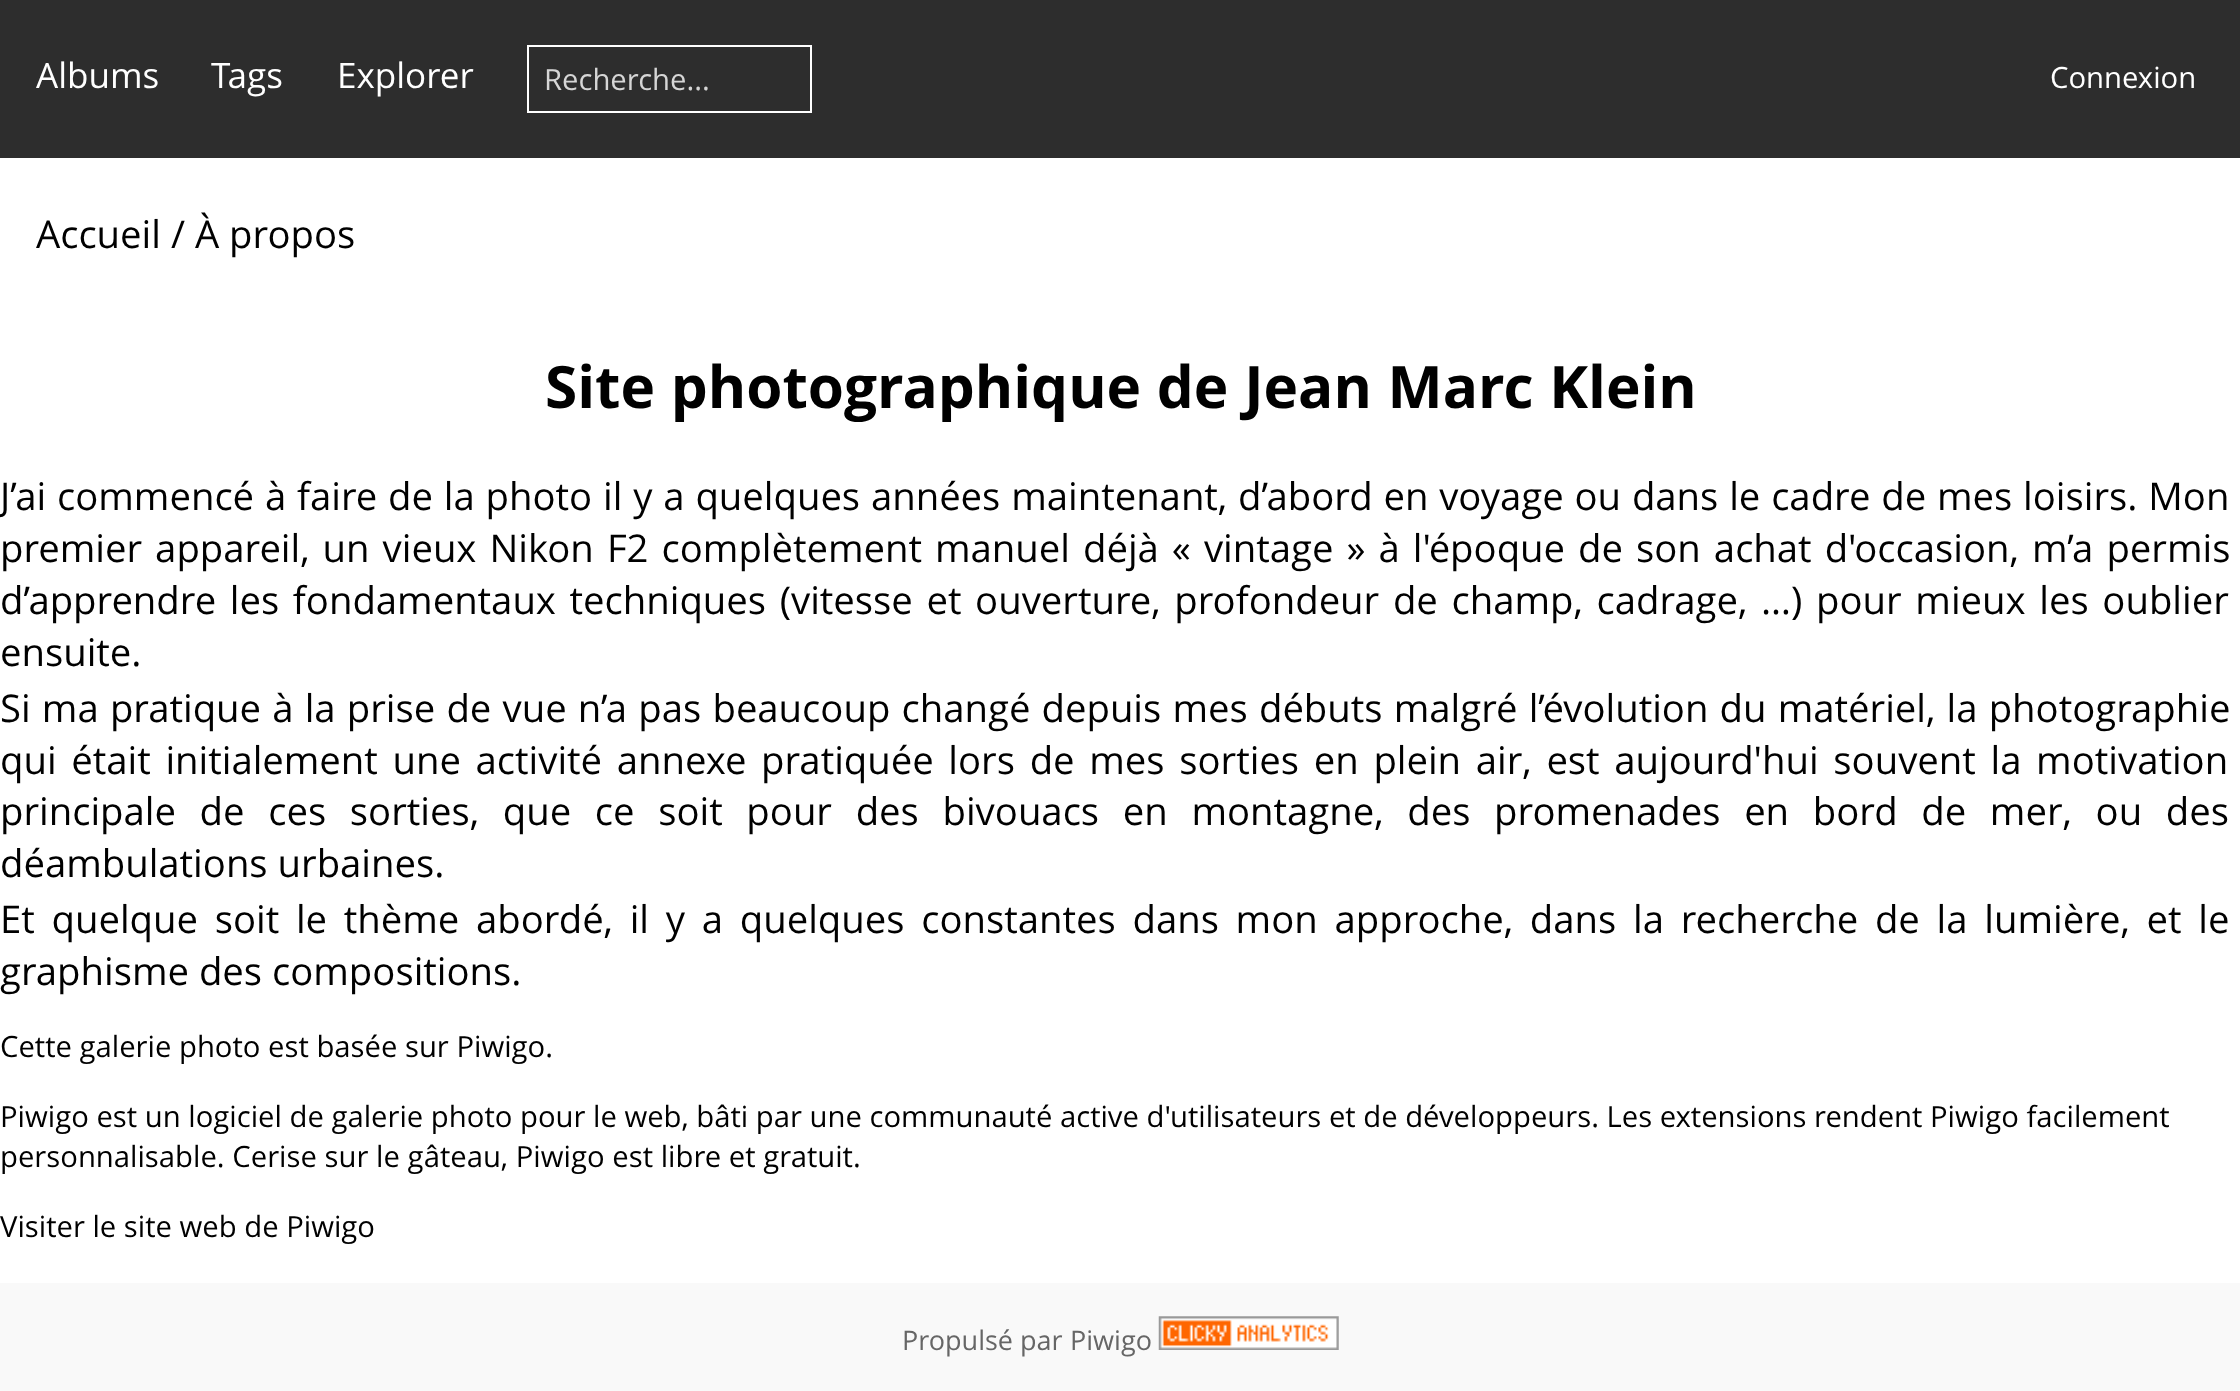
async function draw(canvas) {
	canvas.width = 2240;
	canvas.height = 1391;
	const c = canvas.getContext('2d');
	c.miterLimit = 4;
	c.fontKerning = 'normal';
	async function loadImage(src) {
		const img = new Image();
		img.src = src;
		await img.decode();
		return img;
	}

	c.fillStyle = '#fff';
	c.fillRect(0, 0, 2240, 1391);
	c.fillStyle = '#2d2d2d';
	c.fillRect(0, 0, 2240, 158);
	c.font = '35px Open Sans';
	c.fillStyle = '#fff';
	for (const [text, x, y] of [
		['Albums', 36, 88],
		['Tags', 211, 88],
		['Explorer', 337, 88],
	]) {
		c.fillText(text, x, y);
	}
	c.strokeStyle = '#fff';
	c.lineWidth = 2;
	c.strokeRect(528, 46, 283, 66);
	c.font = '29.25px Open Sans';
	c.fillStyle = '#d6d6d6';
	c.fillText('Recherche...', 544, 90);
	c.fillStyle = '#fff';
	c.fillText('Connexion', 2050, 88);
	c.font = '38.25px Open Sans';
	c.fillStyle = '#000';
	c.fillText('Accueil', 36, 248);
	c.fillText('/ À propos', 171, 248);
	c.wordSpacing = '0.5px';
	c.font = 'bold 58.5px Open Sans';
	c.fillText('Site photographique de Jean Marc Klein', 545, 408);
	c.wordSpacing = '0.9px';
	c.font = '38.25px Open Sans';
	c.fillText('J’ai commencé à faire de la photo il y a quelques années maintenant, d’abord en voyage ou dans le cadre de mes loisirs. Mon', 0, 510);
	c.wordSpacing = '3.1px';
	c.fillText('premier appareil, un vieux Nikon F2 complètement manuel déjà « vintage » à l\'époque de son achat d\'occasion, m’a permis', 0, 562);
	c.wordSpacing = '3.75px';
	c.fillText('d’apprendre les fondamentaux techniques (vitesse et ouverture, profondeur de champ, cadrage, …) pour mieux les oublier', 0, 614);
	c.wordSpacing = '0px';
	c.fillText('ensuite.', 0, 666);
	c.wordSpacing = '1.25px';
	c.fillText('Si ma pratique à la prise de vue n’a pas beaucoup changé depuis mes débuts malgré l’évolution du matériel, la photographie', 0, 722);
	c.wordSpacing = '4.75px';
	c.fillText('qui était initialement une activité annexe pratiquée lors de mes sorties en plein air, est aujourd\'hui souvent la motivation', 0, 774);
	c.wordSpacing = '13.75px';
	c.fillText('principale de ces sorties, que ce soit pour des bivouacs en montagne, des promenades en bord de mer, ou des', 0, 825);
	c.wordSpacing = '0px';
	c.fillText('déambulations urbaines.', 0, 877);
	c.wordSpacing = '6.8px';
	c.fillText('Et quelque soit le thème abordé, il y a quelques constantes dans mon approche, dans la recherche de la lumière, et le', 0, 933);
	c.wordSpacing = '0px';
	c.fillText('graphisme des compositions.', 0, 985);
	c.font = '29.25px Open Sans';
	c.fillText('Cette galerie photo est basée sur Piwigo.', 0, 1057);
	c.fillText('Piwigo est un logiciel de galerie photo pour le web, bâti par une communauté active d\'utilisateurs et de développeurs. Les extensions rendent Piwigo facilement', 0, 1127);
	c.wordSpacing = '0.1px';
	c.fillText('personnalisable. Cerise sur le gâteau, Piwigo est libre et gratuit.', 0, 1167);
	c.wordSpacing = '0px';
	c.fillText('Visiter le site web de Piwigo', 0, 1237);
	c.fillStyle = '#f9f9f9';
	c.fillRect(0, 1283, 2240, 108);
	c.font = '27px Open Sans';
	c.fillStyle = '#666';
	c.fillText('Propulsé par', 902, 1350);
	c.fillText('Piwigo', 1070, 1350);
	c.drawImage(await loadImage('img1.png'), 1158, 1316, 181, 34);
}

draw(document.querySelector('canvas'));
